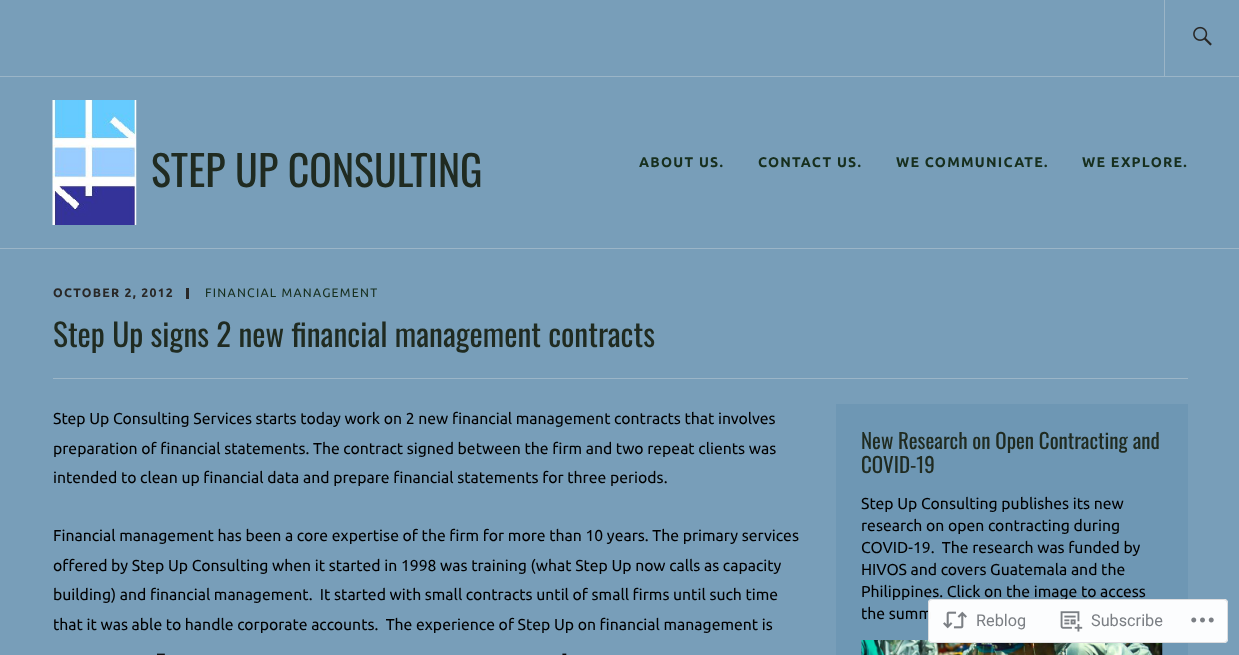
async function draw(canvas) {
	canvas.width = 1239;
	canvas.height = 655;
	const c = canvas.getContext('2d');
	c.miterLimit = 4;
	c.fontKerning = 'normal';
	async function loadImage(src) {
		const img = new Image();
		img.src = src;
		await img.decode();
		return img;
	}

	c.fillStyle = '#789eb9';
	c.fillRect(0, 0, 1239, 655);
	for (const [x, y, w, h, color] of [
		[0, 248, 1239, 1, '#9bb5c7'],
		[0, 76, 1239, 1, '#9bb5c7'],
		[1164, 0, 1, 76, '#9bb5c7'],
	]) {
		c.fillStyle = color;
		c.fillRect(x, y, w, h);
	}
	c.drawImage(await loadImage('img1.png'), 1193, 26, 19, 20);
	c.drawImage(await loadImage('img2.png'), 52, 100, 85, 125);
	c.font = '42px Oswald';
	c.fillStyle = '#202b21';
	c.fillText('STEP UP CONSULTING', 151, 187);
	c.letterSpacing = '1.25px';
	c.font = 'bold 14px Ubuntu';
	c.fillStyle = '#172f1e';
	for (const [text, x, y] of [
		['ABOUT US.', 639, 167],
		['CONTACT US.', 758, 167],
		['WE COMMUNICATE.', 896, 167],
		['WE EXPLORE.', 1082, 167],
	]) {
		c.fillText(text, x, y);
	}
	c.font = 'bold 12.25px Ubuntu';
	c.fillStyle = '#292827';
	c.fillText('OCTOBER 2, 2012', 53, 297);
	c.fillRect(186, 288, 3, 11);
	c.font = '12.25px Ubuntu';
	c.fillStyle = '#172f1e';
	c.fillText('FINANCIAL MANAGEMENT', 205, 297);
	c.fillStyle = '#9bb5c7';
	c.fillRect(53, 378, 1135, 1);
	c.letterSpacing = '0px';
	c.font = '31.5px Oswald';
	c.fillStyle = '#202b21';
	c.fillText('Step Up signs 2 new financial management contracts', 53, 347);
	c.font = '15.75px Ubuntu';
	c.fillStyle = '#000';
	for (const [text, x, y] of [
		['Step Up Consulting Services starts today work on 2 new financial management contracts that involves', 53, 424],
		['preparation of financial statements. The contract signed between the firm and two repeat clients was', 53, 454],
		['intended to clean up financial data and prepare financial statements for three periods.', 53, 483],
		['Financial management has been a core expertise of the firm for more than 10 years. The primary services', 53, 541],
		['offered by Step Up Consulting when it started in 1998 was training (what Step Up now calls as capacity', 53, 571],
		['building) and financial management.  It started with small contracts until of small firms until such time', 53, 600],
		['that it was able to handle corporate accounts.  The experience of Step Up on financial management is', 53, 630],
		['–', 157, 659],
		['-', 562, 659],
	]) {
		c.fillText(text, x, y);
	}
	c.fillStyle = '#6e97b4';
	c.fillRect(836, 404, 352, 251);
	c.font = '21px Oswald';
	c.fillStyle = '#202b21';
	c.fillText('New Research on Open Contracting and', 861, 449);
	c.fillText('COVID-19', 861, 473);
	c.font = '15.75px Ubuntu';
	c.fillStyle = '#000';
	for (const [text, x, y] of [
		['Step Up Consulting publishes its new', 861, 509],
		['research on open contracting during', 861, 531],
		['COVID-19.  The research was funded by', 861, 553],
		['HIVOS and covers Guatemala and the', 861, 575],
		['Philippines. Click on the image to access', 861, 597],
		['the summ', 861, 619],
	]) {
		c.fillText(text, x, y);
	}
	c.drawImage(await loadImage('img3.png'), 861, 640, 302, 15);
	c.fillStyle = '#fffffffa';
	c.beginPath();
	c.roundRect(928, 599, 300, 44, 4);
	c.fill();
	c.beginPath();
	c.roundRect(928.5, 599.5, 299, 43, 3.5);
	c.strokeStyle = '#dcdcdefa';
	c.stroke();
	c.drawImage(await loadImage('img4.png'), 943, 611, 24, 18);
	c.font = '16.25px Roboto';
	c.fillStyle = '#7b7f84';
	c.fillText('Reblog', 976, 626);
	c.drawImage(await loadImage('img5.png'), 1060, 611, 23, 21);
	c.fillText('Subscribe', 1091, 626);
	c.drawImage(await loadImage('img6.png'), 1191, 617, 23, 6);
}

draw(document.querySelector('canvas'));
